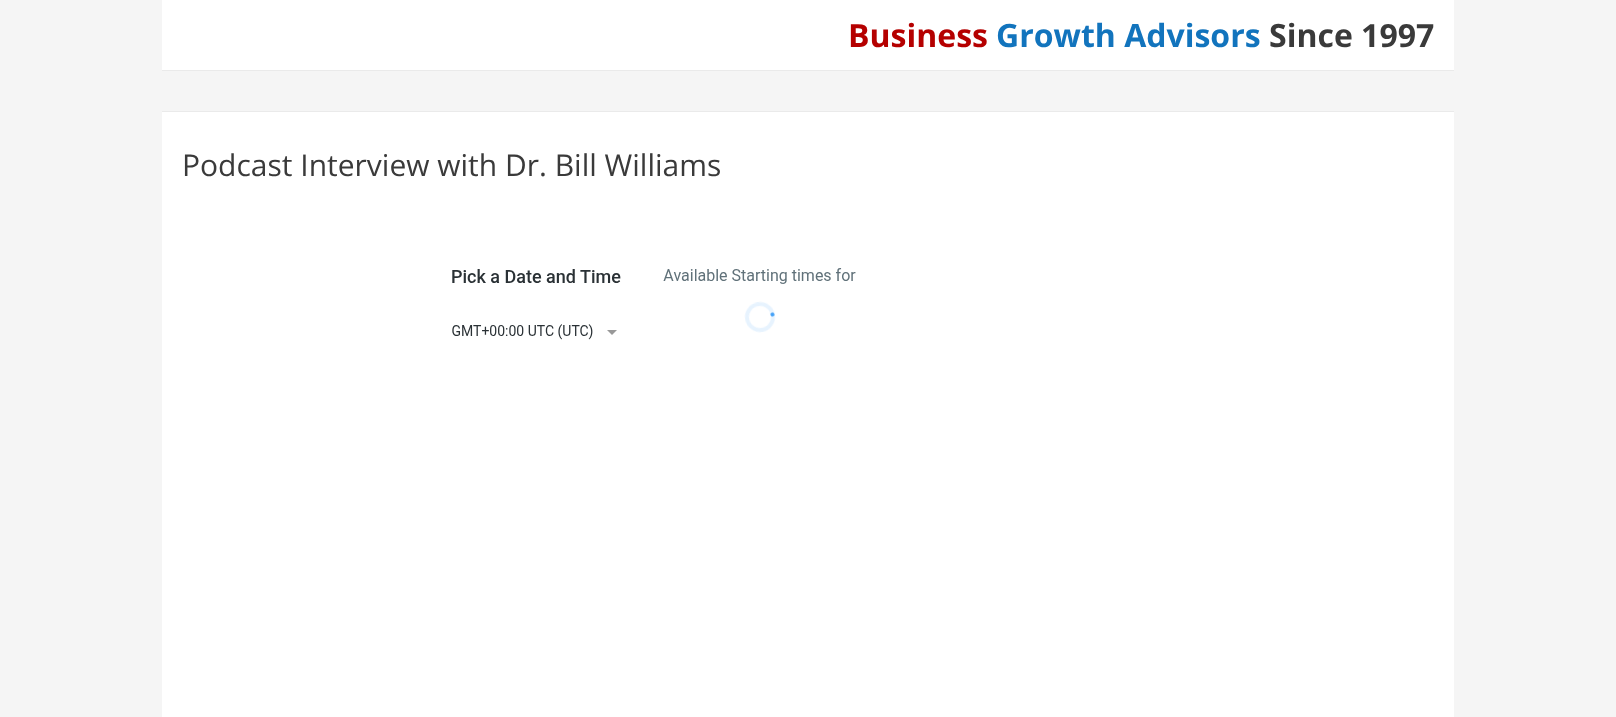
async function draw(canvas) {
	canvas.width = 1616;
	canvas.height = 717;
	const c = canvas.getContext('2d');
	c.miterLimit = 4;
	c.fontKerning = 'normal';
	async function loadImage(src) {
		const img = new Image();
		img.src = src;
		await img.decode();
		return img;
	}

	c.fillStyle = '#f5f5f5';
	c.fillRect(0, 0, 1616, 717);
	c.fillStyle = '#fff';
	c.fillRect(162, 0, 1292, 70);
	c.fillStyle = '#eaeaea';
	c.fillRect(162, 70, 1292, 1);
	c.font = 'bold 32px Open Sans';
	c.fillStyle = '#b50000';
	c.fillText('Business', 848, 47);
	c.fillStyle = '#1274bd';
	c.fillText('Growth Advisors', 996, 47);
	c.fillStyle = '#3a3a3a';
	c.fillText('Since 1997', 1269, 47);
	c.fillStyle = '#eaeaea';
	c.fillRect(162, 111, 1292, 1);
	c.fillStyle = '#fff';
	c.fillRect(162, 112, 1292, 605);
	c.font = '30px Open Sans';
	c.fillStyle = '#3a3a3a';
	c.fillText('Podcast Interview with Dr. Bill Williams', 182, 176);
	c.drawImage(await loadImage('img1.png'), 452, 268, 404, 72);
}

draw(document.querySelector('canvas'));
